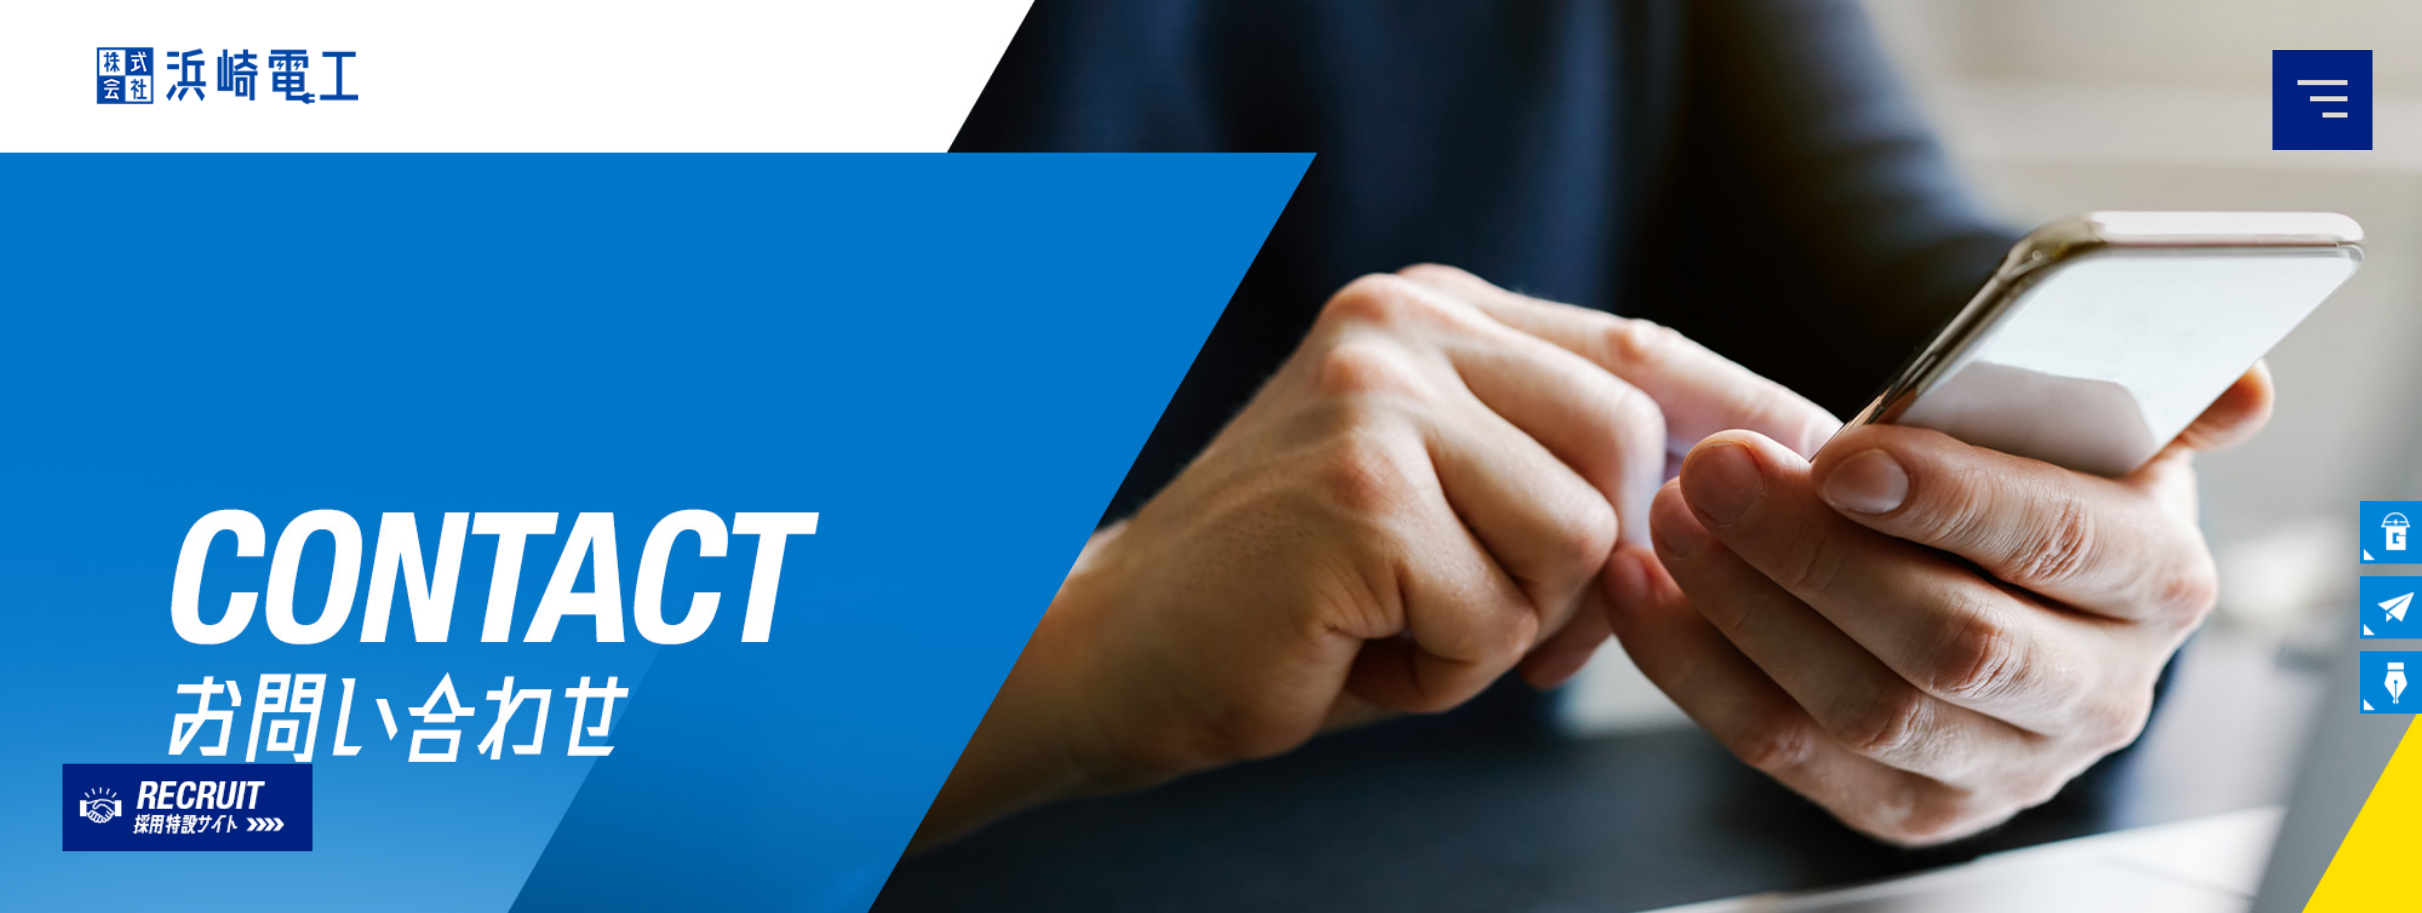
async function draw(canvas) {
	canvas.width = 2422;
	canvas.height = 913;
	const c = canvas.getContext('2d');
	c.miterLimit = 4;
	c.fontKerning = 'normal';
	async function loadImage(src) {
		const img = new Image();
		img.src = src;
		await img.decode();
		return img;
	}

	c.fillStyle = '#fff';
	c.fillRect(0, 0, 2422, 913);
	c.drawImage(await loadImage('img1.png'), 0, 0, 2422, 913);
	c.drawImage(await loadImage('img2.png'), 96, 47, 263, 58);
	c.drawImage(await loadImage('img3.png'), 2272, 50, 101, 100);
	c.drawImage(await loadImage('img4.png'), 2360, 501, 62, 64);
	c.drawImage(await loadImage('img5.png'), 2360, 576, 62, 64);
	c.drawImage(await loadImage('img6.png'), 2360, 651, 62, 63);
	c.drawImage(await loadImage('img7.png'), 62, 763, 251, 89);
}

draw(document.querySelector('canvas'));
